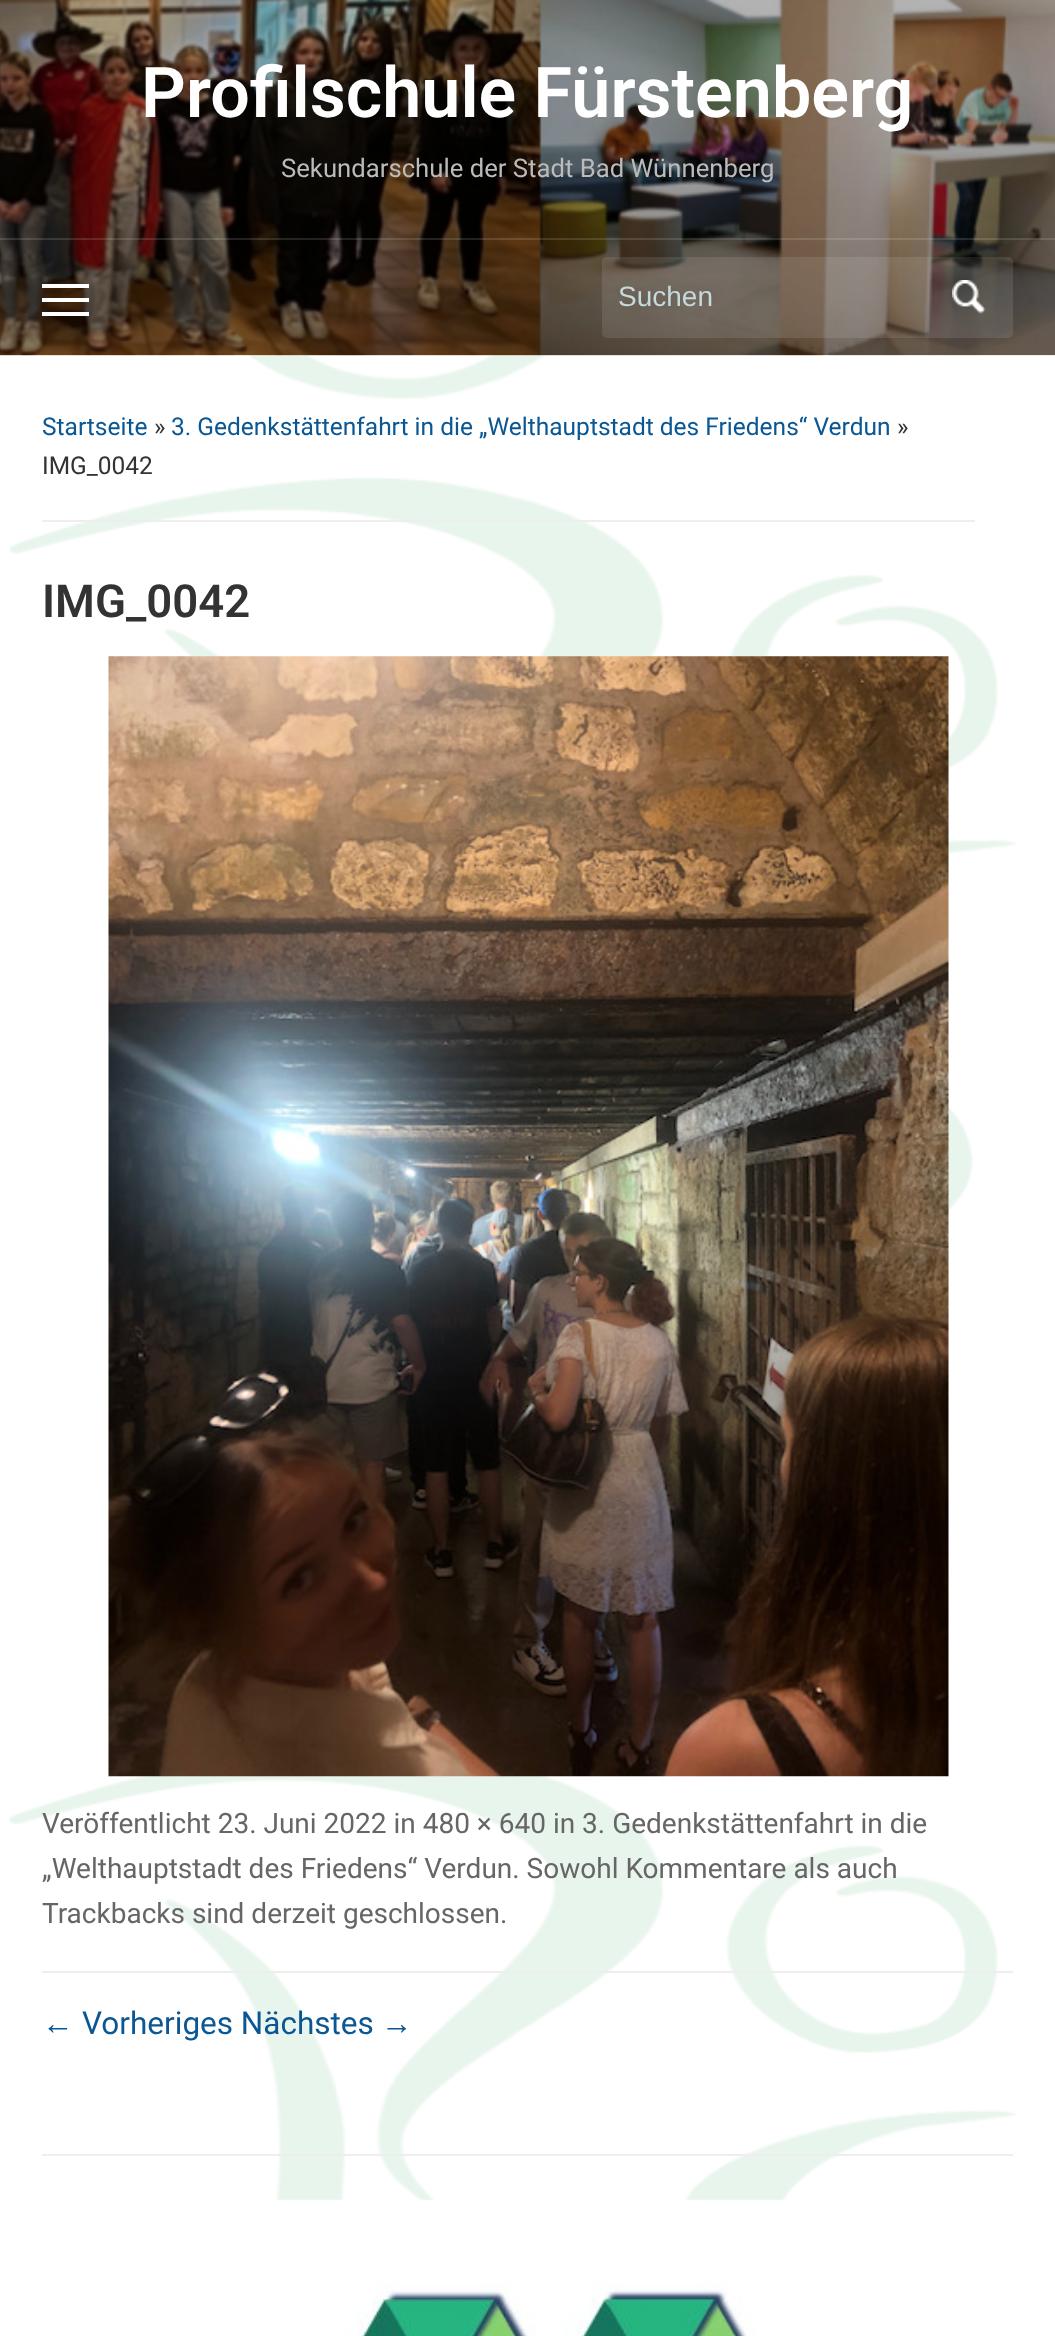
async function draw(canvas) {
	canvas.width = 1055;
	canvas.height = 2336;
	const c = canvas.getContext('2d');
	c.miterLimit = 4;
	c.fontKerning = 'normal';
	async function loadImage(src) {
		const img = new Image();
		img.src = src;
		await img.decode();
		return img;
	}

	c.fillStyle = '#fff';
	c.fillRect(0, 0, 1055, 2336);
	c.drawImage(await loadImage('img1.png'), 9, 355, 1007, 1981);
	c.drawImage(await loadImage('img2.png'), 0, 0, 1055, 356);
	c.font = '600 70px Roboto';
	c.fillText('Profilschule Fürstenberg', 141, 117);
	c.font = '25.7px Roboto';
	c.fillStyle = '#bbb';
	c.fillText('Sekundarschule der Stadt Bad Wünnenberg', 281, 177);
	for (const [x, y, w, h, color] of [
		[0, 238, 1055, 2, '#ffffff21'],
		[42, 284, 47, 4, '#fff'],
		[42, 298, 47, 4, '#fff'],
		[42, 312, 47, 4, '#fff'],
	]) {
		c.fillStyle = color;
		c.fillRect(x, y, w, h);
	}
	c.fillStyle = '#ffffff1a';
	c.beginPath();
	c.roundRect(602, 257, 411, 81, 5);
	c.fill();
	c.font = '28px Liberation Sans';
	c.fillStyle = '#c6d9db';
	c.fillText('Suchen', 618, 306);
	c.drawImage(await loadImage('img3.png'), 952, 280, 34, 34);
	c.fillStyle = '#eee';
	c.fillRect(42, 520, 933, 2);
	c.font = '24.5px Roboto';
	c.fillStyle = '#0a5794';
	c.fillText('Startseite', 42, 435);
	c.fillStyle = '#333';
	c.fillText('»', 154, 435);
	c.fillStyle = '#0a5794';
	c.fillText('3. Gedenkstättenfahrt in die „Welthauptstadt des Friedens“ Verdun', 171, 435);
	c.fillStyle = '#333';
	c.fillText('»', 897, 435);
	c.fillText('IMG_0042', 42, 474);
	c.font = '600 45.5px Roboto';
	c.fillText('IMG_0042', 42, 617);
	c.drawImage(await loadImage('img4.png'), 108, 656, 841, 1121);
	c.fillStyle = '#eee';
	c.fillRect(42, 1971, 971, 2);
	c.font = '28px Roboto';
	c.fillStyle = '#666';
	for (const [text, x, y] of [
		['Veröffentlicht 23. Juni 2022 in 480 × 640 in 3. Gedenkstättenfahrt in die', 42, 1833],
		['„Welthauptstadt des Friedens“ Verdun. Sowohl Kommentare als auch', 42, 1878],
		['Trackbacks sind derzeit geschlossen.', 42, 1923],
	]) {
		c.fillText(text, x, y);
	}
	c.font = '31.5px Liberation Sans';
	c.fillStyle = '#0a5794';
	c.fillText('←', 42, 2034);
	c.font = '31.5px Roboto';
	c.fillText('Vorheriges Nächstes', 82, 2034);
	c.font = '31.5px Liberation Sans';
	c.fillText('→', 381, 2034);
	c.fillStyle = '#eee';
	c.fillRect(42, 2154, 971, 2);
	c.drawImage(await loadImage('img5.png'), 258, 2199, 639, 137);
}

draw(document.querySelector('canvas'));
